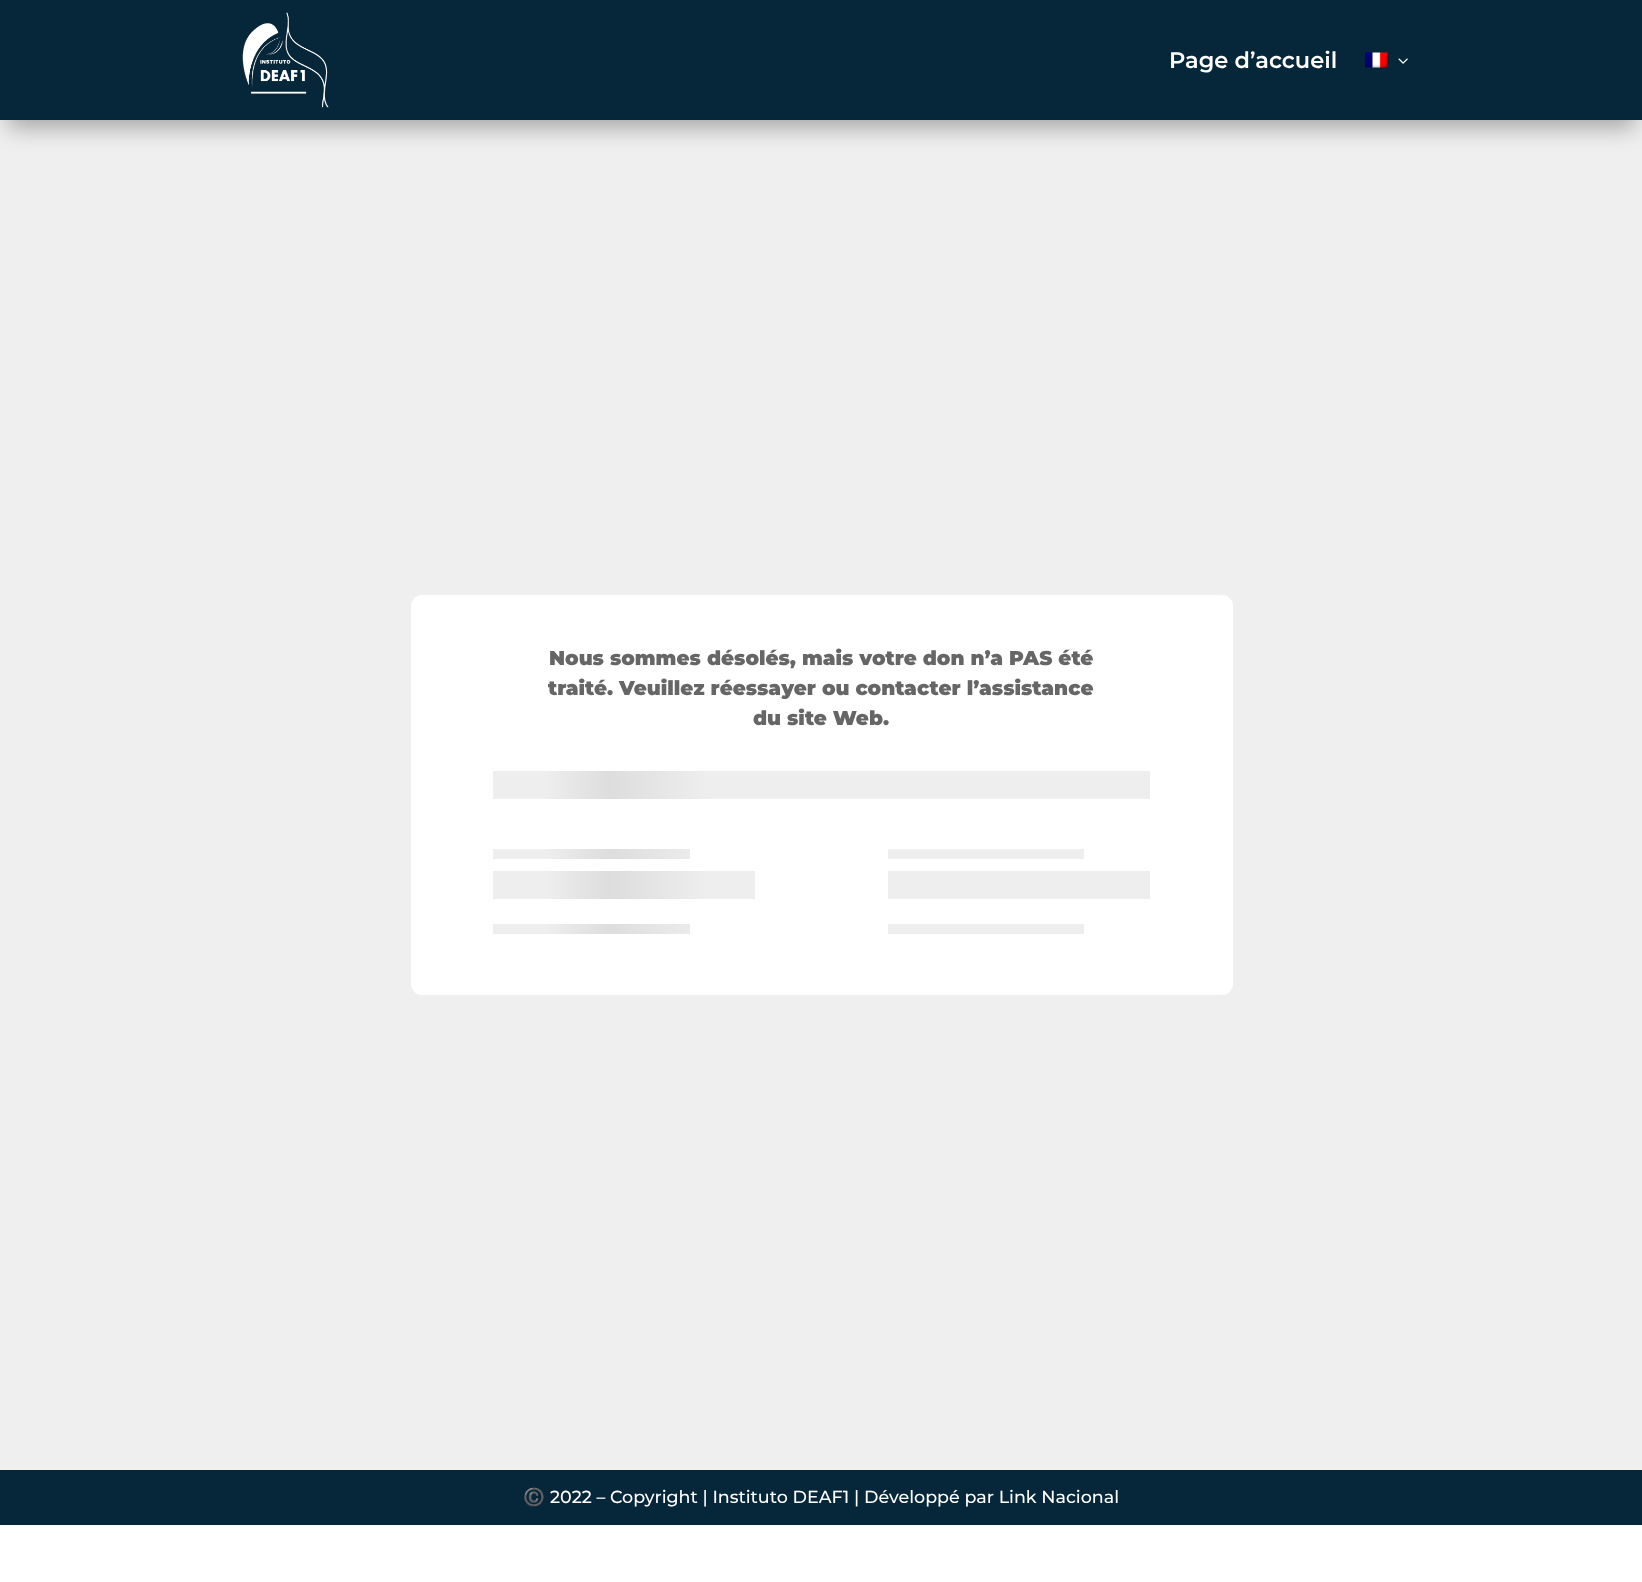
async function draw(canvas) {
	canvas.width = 1642;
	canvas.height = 1582;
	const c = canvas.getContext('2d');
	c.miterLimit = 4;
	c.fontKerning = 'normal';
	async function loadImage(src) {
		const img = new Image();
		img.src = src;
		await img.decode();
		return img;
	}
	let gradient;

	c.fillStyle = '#fff';
	c.fillRect(0, 0, 1642, 1582);
	c.fillStyle = '#efefef';
	c.fillRect(0, 120, 1642, 1350);
	c.fillStyle = '#0000004d';
	c.filter = 'blur(11px)';
	c.beginPath();
	c.rect(8, 23, 1627, 105);
	c.fill();
	c.filter = 'none';
	c.fillStyle = '#06273a';
	c.fillRect(0, 0, 1642, 120);
	c.drawImage(await loadImage('img1.png'), 242, 12, 87, 96);
	c.font = '600 22.5px Montserrat';
	c.fillStyle = '#fff';
	c.fillText('Page d’accueil', 1169, 68);
	c.drawImage(await loadImage('img2.png'), 1365, 52, 23, 16);
	c.drawImage(await loadImage('img3.png'), 1398, 58, 10, 6);
	c.beginPath();
	c.roundRect(411, 595, 822, 171, [11, 11, 0, 0]);
	c.fill();
	c.font = '900 20px Montserrat';
	c.fillStyle = '#666';
	for (const [text, x, y] of [
		['Nous sommes désolés, mais votre don n’a PAS été', 549, 665],
		['traité. Veuillez réessayer ou contacter l’assistance', 548, 695],
		['du site Web.', 753, 725],
	]) {
		c.fillText(text, x, y);
	}
	c.fillStyle = '#fff';
	c.beginPath();
	c.roundRect(411, 766, 822, 229, [0, 0, 11, 11]);
	c.fill();
	gradient = c.createLinearGradient(493, 859, 1143, 859);
	gradient.addColorStop(0.08, '#eee');
	gradient.addColorStop(0.18, '#ddd');
	gradient.addColorStop(0.33, '#eee');
	c.fillStyle = gradient;
	c.fillRect(493, 771, 650, 163);
	gradient = c.createLinearGradient(1143, 859, 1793, 859);
	gradient.addColorStop(0.08, '#eee');
	gradient.addColorStop(0.18, '#ddd');
	gradient.addColorStop(0.33, '#eee');
	c.fillStyle = gradient;
	c.fillRect(1143, 771, 7, 128);
	for (const [x, y, w, h, color] of [
		[493, 799, 657, 50, '#fff'],
		[690, 849, 198, 10, '#fff'],
		[1084, 849, 66, 10, '#fff'],
		[493, 859, 657, 12, '#fff'],
		[755, 871, 133, 28, '#fff'],
		[493, 899, 650, 25, '#fff'],
		[690, 924, 198, 10, '#fff'],
		[1084, 924, 59, 10, '#fff'],
		[0, 1470, 1642, 55, '#06273a'],
	]) {
		c.fillStyle = color;
		c.fillRect(x, y, w, h);
	}
	c.font = '17.5px Noto Color Emoji';
	c.fillStyle = '#fff';
	c.fillText('©️', 523, 1503);
	c.font = '500 17.5px Montserrat';
	c.fillText('2022 – Copyright | Instituto DEAF1 | Développé par Link Nacional', 550, 1503);
}

draw(document.querySelector('canvas'));
